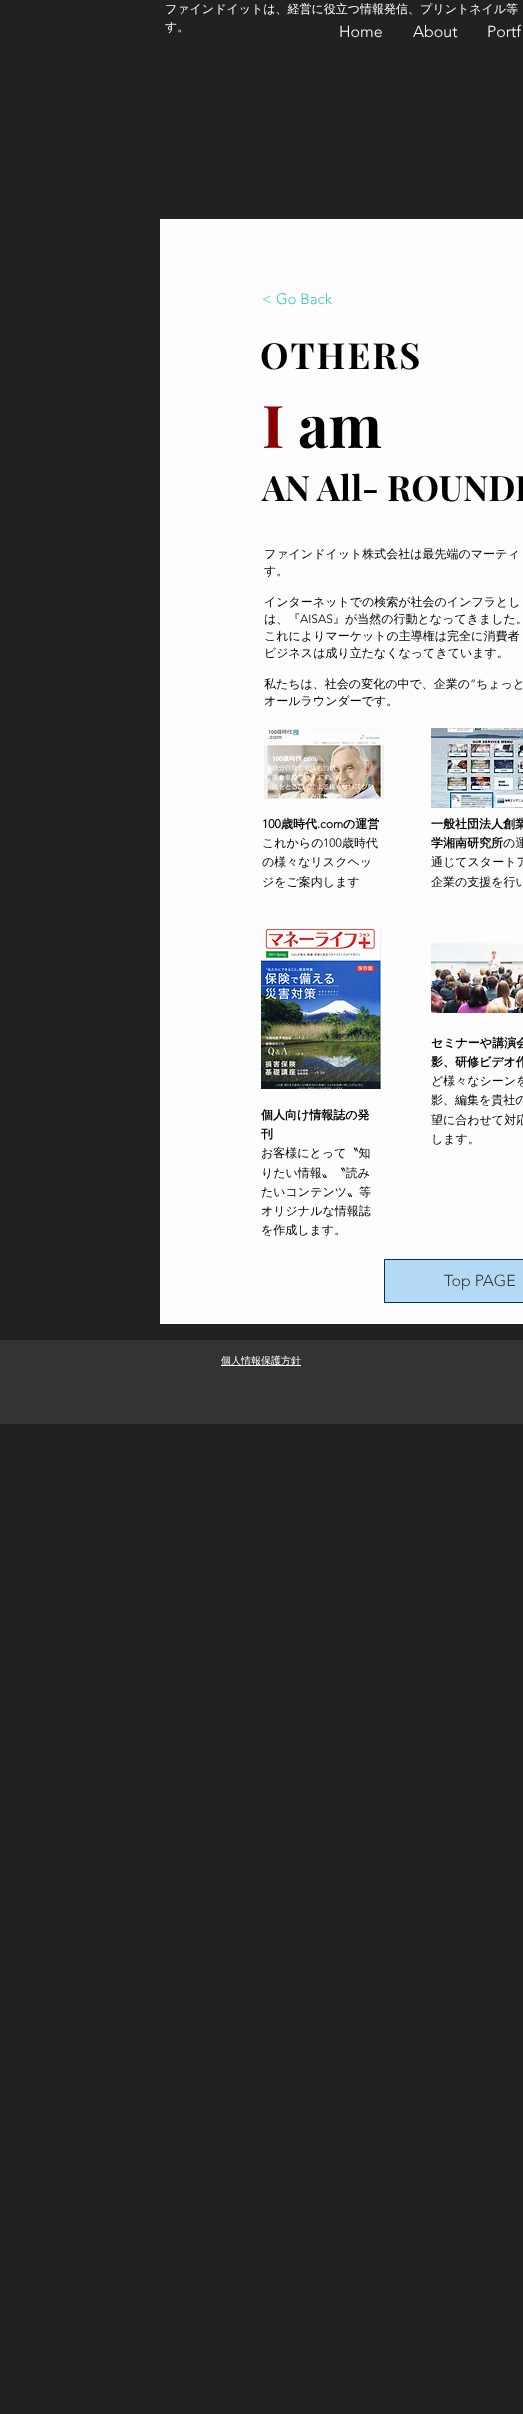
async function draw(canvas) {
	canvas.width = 523;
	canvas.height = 2414;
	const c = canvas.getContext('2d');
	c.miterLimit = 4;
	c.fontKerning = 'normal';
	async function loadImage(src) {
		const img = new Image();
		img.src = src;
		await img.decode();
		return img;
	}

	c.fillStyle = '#212121';
	c.fillRect(0, 0, 523, 2414);
	c.font = '500 12px WenQuanYi Zen Hei';
	c.fillStyle = '#fff';
	c.fillText('ファインドイットは、経営に役立つ情報発信、プリントネイル等', 165, 13);
	c.fillText('す。', 165, 31);
	c.font = '300 16px "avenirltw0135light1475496"';
	for (const [text, x, y] of [
		['Home', 339, 37],
		['About', 413, 37],
		['Portf', 487, 37],
	]) {
		c.fillText(text, x, y);
	}
	c.fillStyle = '#fdfdfd';
	c.fillRect(160, 219, 363, 1105);
	c.font = '300 15px "avenirltw0135light1475496"';
	c.fillStyle = '#3eccb5';
	c.fillText('< Go Back', 262, 304);
	c.letterSpacing = '2px';
	c.font = 'bold 36px Playfair Display';
	c.fillStyle = '#000';
	c.fillText('OTHERS', 260, 369);
	c.letterSpacing = '0px';
	c.font = 'bold 59px Playfair Display';
	c.fillStyle = '#8b0000';
	c.fillText('I', 262, 448);
	c.fillStyle = '#000';
	c.fillText('am', 298, 448);
	c.font = 'bold 35px Playfair Display';
	c.fillText('AN All- ROUNDE', 262, 501);
	c.font = '500 12px WenQuanYi Zen Hei';
	for (const [text, x, y] of [
		['ファインドイット株式会社は最先端のマーティ', 264, 558],
		['す。', 264, 575],
		['インターネットでの検索が社会のインフラとし', 264, 606],
		['は、『', 264, 623],
	]) {
		c.fillText(text, x, y);
	}
	c.font = '300 12px "avenirltw0135light1475496"';
	c.fillText('AISAS', 300, 623);
	c.font = '500 12px WenQuanYi Zen Hei';
	for (const [text, x, y] of [
		['』が当然の行動となってきました。', 333, 623],
		['これによりマーケットの主導権は完全に消費者', 264, 640],
		['ビジネスは成り立たなくなってきています。', 264, 657],
		['私たちは、社会の変化の中で、企業の', 264, 688],
	]) {
		c.fillText(text, x, y);
	}
	c.font = '300 12px "avenirltw0135light1475496"';
	c.fillText('“', 470, 688);
	c.font = '500 12px WenQuanYi Zen Hei';
	c.fillText('ちょっと', 476, 688);
	c.fillText('オールラウンダーです。', 264, 705);
	c.drawImage(await loadImage('img1.png'), 264, 728, 120, 71);
	c.drawImage(await loadImage('img2.png'), 431, 728, 92, 80);
	c.font = 'bold 12px "avenirltw0135light1475496"';
	c.fillText('100', 262, 828);
	c.font = 'bold 12px WenQuanYi Zen Hei';
	c.fillText('歳時代', 281, 828);
	c.font = 'bold 12px "avenirltw0135light1475496"';
	c.fillText('.com', 317, 828);
	c.font = 'bold 12px WenQuanYi Zen Hei';
	c.fillText('の運営', 343, 828);
	c.font = '500 12px WenQuanYi Zen Hei';
	c.fillText('これからの', 262, 847);
	c.font = '300 12px "avenirltw0135light1475496"';
	c.fillText('100', 323, 847);
	c.font = '500 12px WenQuanYi Zen Hei';
	for (const [text, x, y] of [
		['歳時代', 342, 847],
		['の様々なリスクヘッ', 262, 866],
		['ジをご案内します', 262, 886],
	]) {
		c.fillText(text, x, y);
	}
	c.font = 'bold 12px WenQuanYi Zen Hei';
	c.fillText('一般社団法人創業', 431, 828);
	c.fillText('学湘南研究所', 431, 847);
	c.font = '500 12px WenQuanYi Zen Hei';
	for (const [text, x, y] of [
		['の運', 503, 847],
		['通じてスタートア', 431, 866],
		['企業の支援を行い', 431, 886],
	]) {
		c.fillText(text, x, y);
	}
	c.drawImage(await loadImage('img3.png'), 261, 928, 120, 161);
	c.drawImage(await loadImage('img4.png'), 431, 942, 92, 71);
	c.font = 'bold 12px WenQuanYi Zen Hei';
	c.fillText('セミナーや講演会', 431, 1047);
	c.fillText('影、研修ビデオ作', 431, 1066);
	c.font = '500 12px WenQuanYi Zen Hei';
	for (const [text, x, y] of [
		['ど様々なシーンを', 431, 1085],
		['影、編集を貴社の', 431, 1104],
		['望に合わせて対応', 431, 1124],
		['します。', 431, 1143],
	]) {
		c.fillText(text, x, y);
	}
	c.font = 'bold 12px WenQuanYi Zen Hei';
	c.fillText('個人向け情報誌の発', 261, 1119);
	c.fillText('刊', 261, 1138);
	c.font = '500 12px WenQuanYi Zen Hei';
	for (const [text, x, y] of [
		['お客様にとって〝知', 261, 1157],
		['りたい情報〟〝読み', 261, 1177],
		['たいコンテンツ〟等', 261, 1196],
		['オリジナルな情報誌', 261, 1215],
		['を作成します。', 261, 1234],
	]) {
		c.fillText(text, x, y);
	}
	c.fillStyle = '#b4d9f4';
	c.beginPath();
	c.rect(384.5, 1259.5, 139, 43);
	c.fill();
	c.strokeStyle = '#002e55';
	c.stroke();
	c.font = '300 16px "avenirltw0135light1475496"';
	c.fillStyle = '#333';
	c.fillText('Top PAGE', 444, 1286);
	c.fillRect(0, 1340, 523, 84);
	c.fillStyle = '#fff';
	c.fillRect(221, 1365, 80, 1);
	c.font = '500 10px WenQuanYi Zen Hei';
	c.fillText('個人情報保護方針', 221, 1364);
}

draw(document.querySelector('canvas'));
